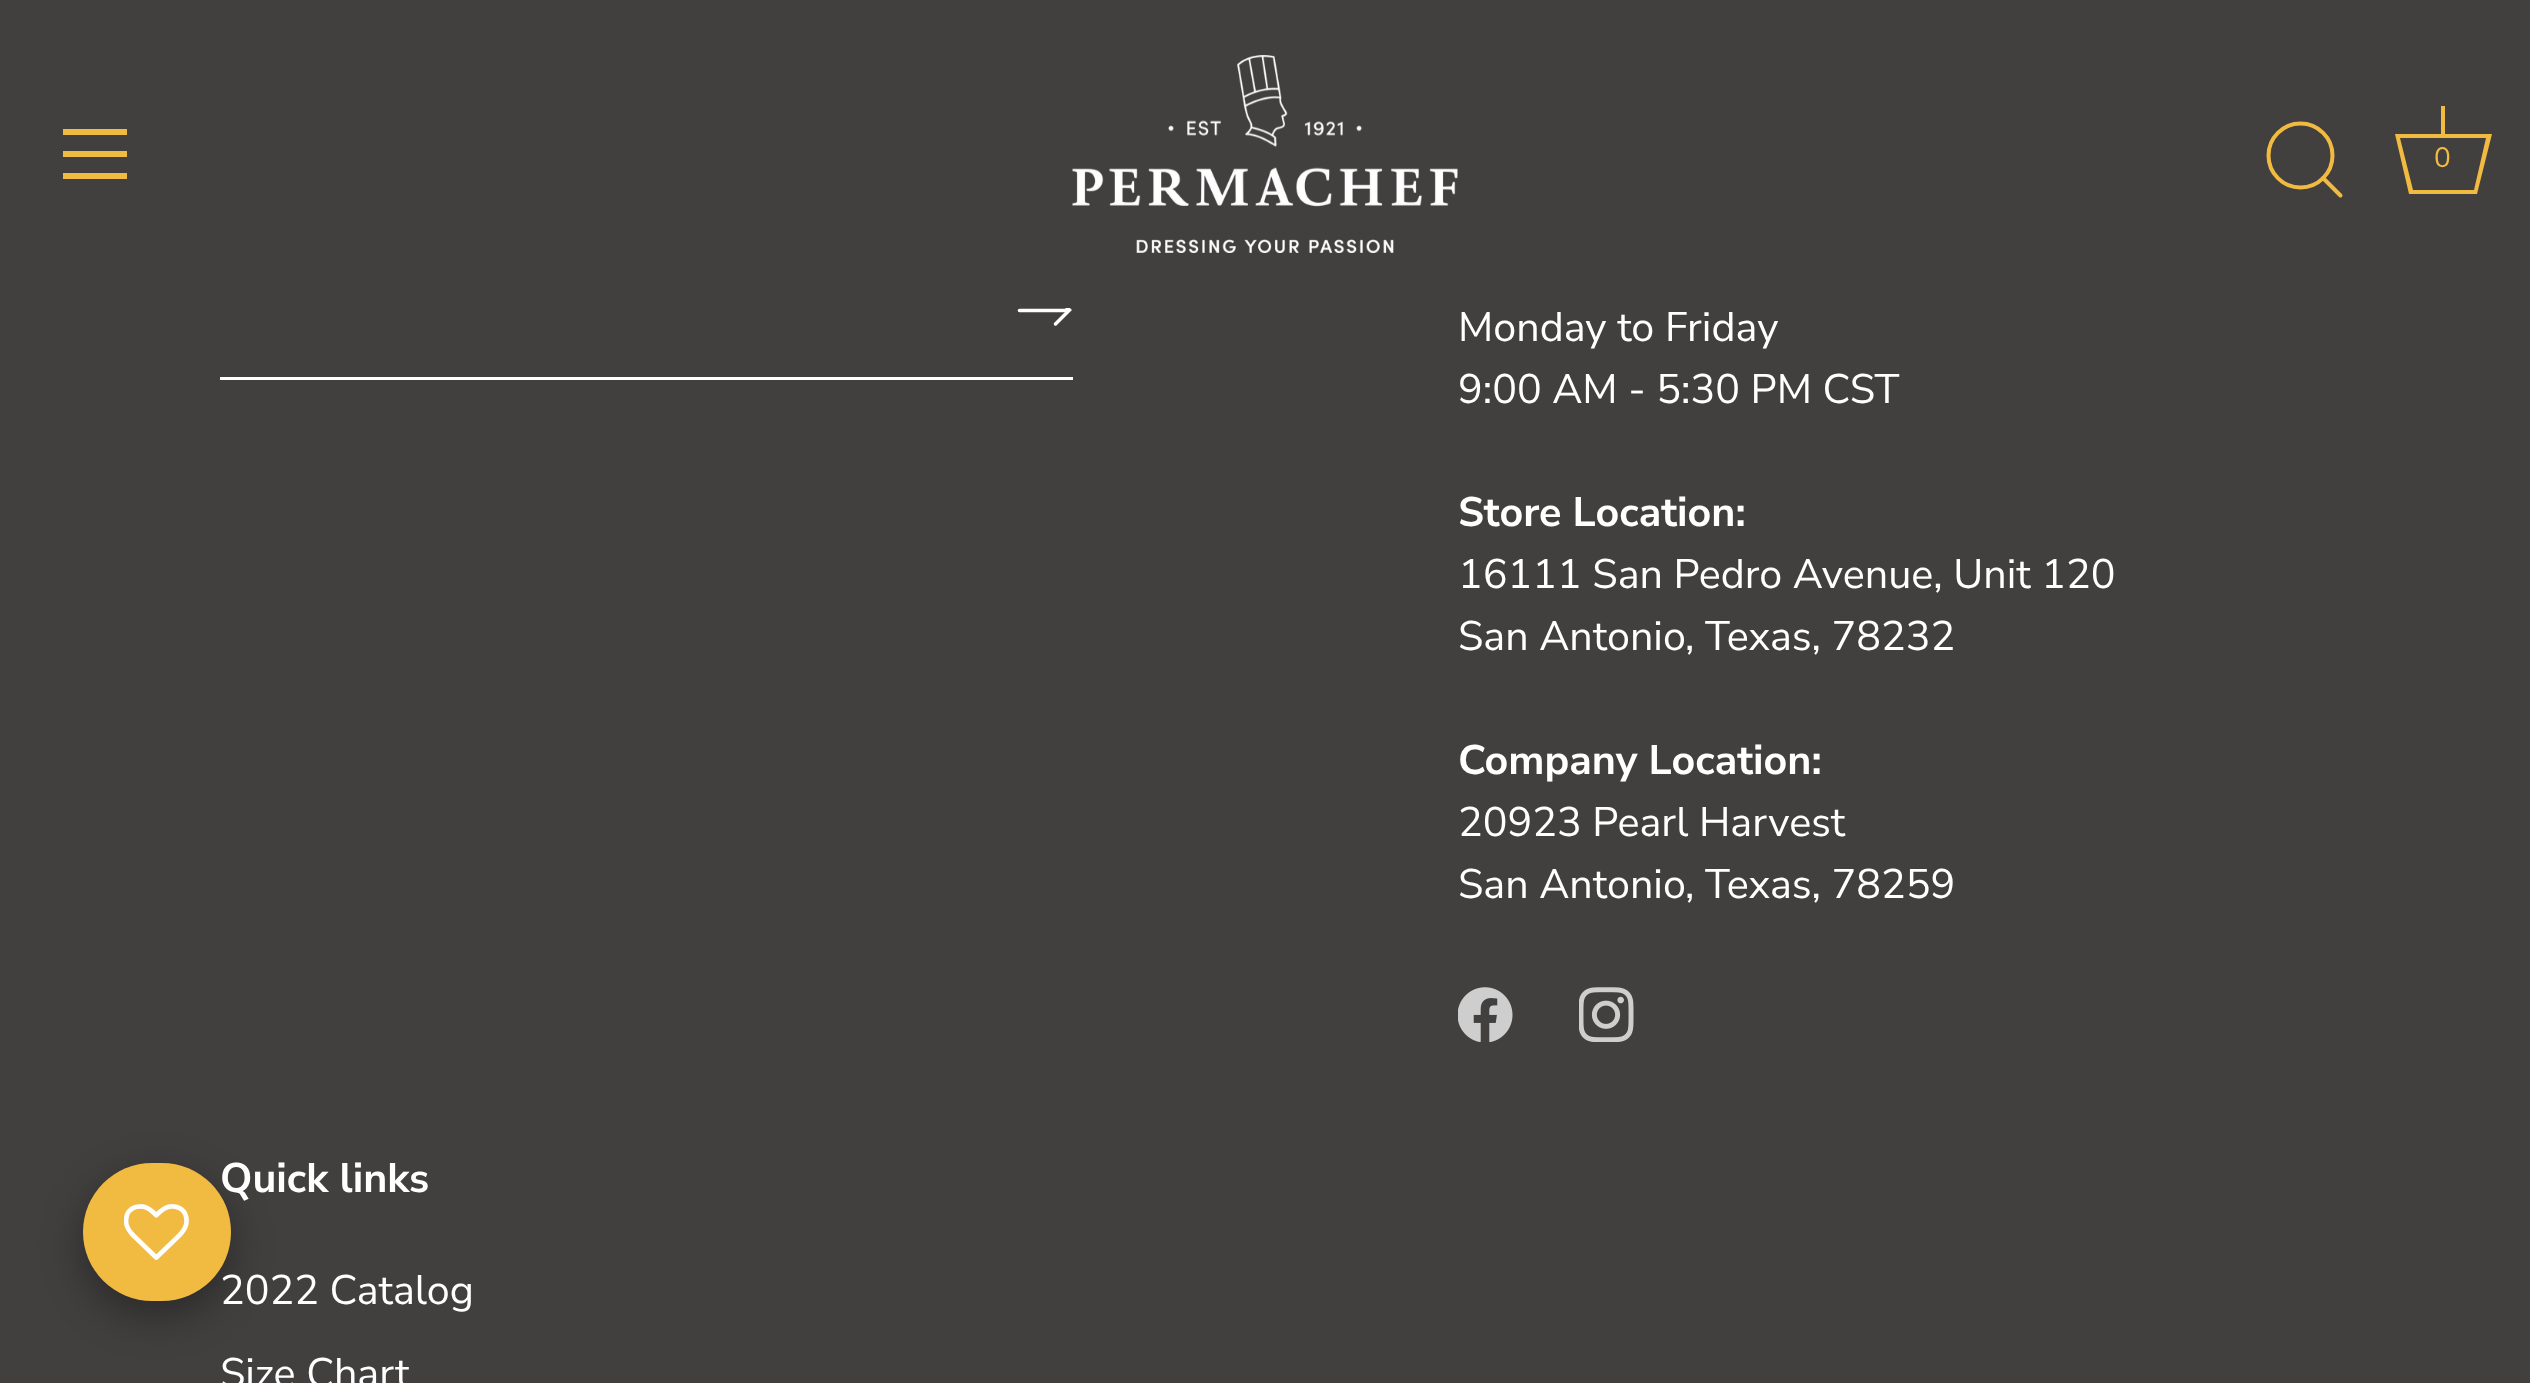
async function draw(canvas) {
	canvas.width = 2530;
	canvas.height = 1383;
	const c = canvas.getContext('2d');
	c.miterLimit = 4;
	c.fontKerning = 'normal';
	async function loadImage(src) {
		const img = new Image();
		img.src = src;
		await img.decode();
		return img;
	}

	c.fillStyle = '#423f3f';
	c.fillRect(0, 0, 2530, 1383);
	c.beginPath();
	c.moveTo(1055.5, 324);
	c.lineTo(1069.5, 310);
	c.lineTo(1055.5, 296.5);
	c.strokeStyle = '#fff';
	c.lineWidth = 3.5;
	c.lineCap = 'round';
	c.stroke();
	for (const [x, y, w, h, color] of [
		[1053, 294, 17, 14, '#423f3f'],
		[63, 129, 64, 6, '#f1bb41'],
		[63, 151, 64, 6, '#f1bb41'],
		[63, 173, 64, 6, '#f1bb41'],
	]) {
		c.fillStyle = color;
		c.fillRect(x, y, w, h);
	}
	c.drawImage(await loadImage('img1.png'), 1072, 55, 386, 198);
	c.beginPath();
	c.arc(2300.5, 155.5, 32, 0, 2 * Math.PI);
	c.strokeStyle = '#f1bb41';
	c.lineWidth = 4;
	c.stroke();
	c.beginPath();
	c.moveTo(2340.5, 195.5);
	c.lineTo(2323, 178);
	c.lineJoin = 'round';
	c.stroke();
	c.fillRect(2441, 106, 4, 28);
	c.beginPath();
	c.moveTo(2486, 138);
	c.lineTo(2474, 190);
	c.lineTo(2413, 190);
	c.lineTo(2400, 138);
	c.lineTo(2486, 138);
	c.moveTo(2492, 134);
	c.lineTo(2395, 134);
	c.lineTo(2409, 194);
	c.lineTo(2477, 194);
	c.closePath();
	c.fill();
	c.font = '28px Nunito Sans';
	c.fillText('0', 2434, 167);
	c.fillStyle = '#00000059';
	c.filter = 'blur(20.5px)';
	c.beginPath();
	c.roundRect(83, 1177, 148, 138, 69);
	c.fill();
	c.filter = 'none';
	c.font = 'bold 41.25px Nunito Sans';
	c.fillStyle = '#fff';
	c.fillText('Quick links', 220, 1192);
	c.font = '41.25px Nunito Sans';
	c.fillText('2022 Catalog', 220, 1304);
	c.fillStyle = '#f1bb41';
	c.beginPath();
	c.roundRect(83, 1163, 148, 138, 69);
	c.fill();
	c.drawImage(await loadImage('img2.png'), 124, 1204, 65, 56);
	c.beginPath();
	c.moveTo(1067.5, 310.5);
	c.lineTo(1019.5, 310.5);
	c.strokeStyle = '#fff';
	c.lineWidth = 3.5;
	c.stroke();
	c.fillStyle = '#fff';
	c.fillRect(220, 377, 853, 3);
	c.fillText('Monday to Friday', 1458, 341);
	c.fillText('9:00 AM - 5:30 PM CST', 1458, 403);
	c.font = 'bold 41.25px Nunito Sans';
	c.fillText('Store Location:', 1458, 526);
	c.font = '41.25px Nunito Sans';
	c.fillText('16111 San Pedro Avenue, Unit 120', 1458, 588);
	c.fillText('San Antonio, Texas, 78232', 1458, 650);
	c.font = 'bold 41.25px Nunito Sans';
	c.fillText('Company Location:', 1458, 774);
	c.font = '41.25px Nunito Sans';
	c.fillText('20923 Pearl Harvest', 1458, 836);
	c.fillText('San Antonio, Texas, 78259', 1458, 898);
	c.drawImage(await loadImage('img3.png'), 1458, 987, 55, 55);
	c.drawImage(await loadImage('img4.png'), 1579, 987, 55, 55);
	c.fillText('Size Chart', 220, 1387);
}

draw(document.querySelector('canvas'));
